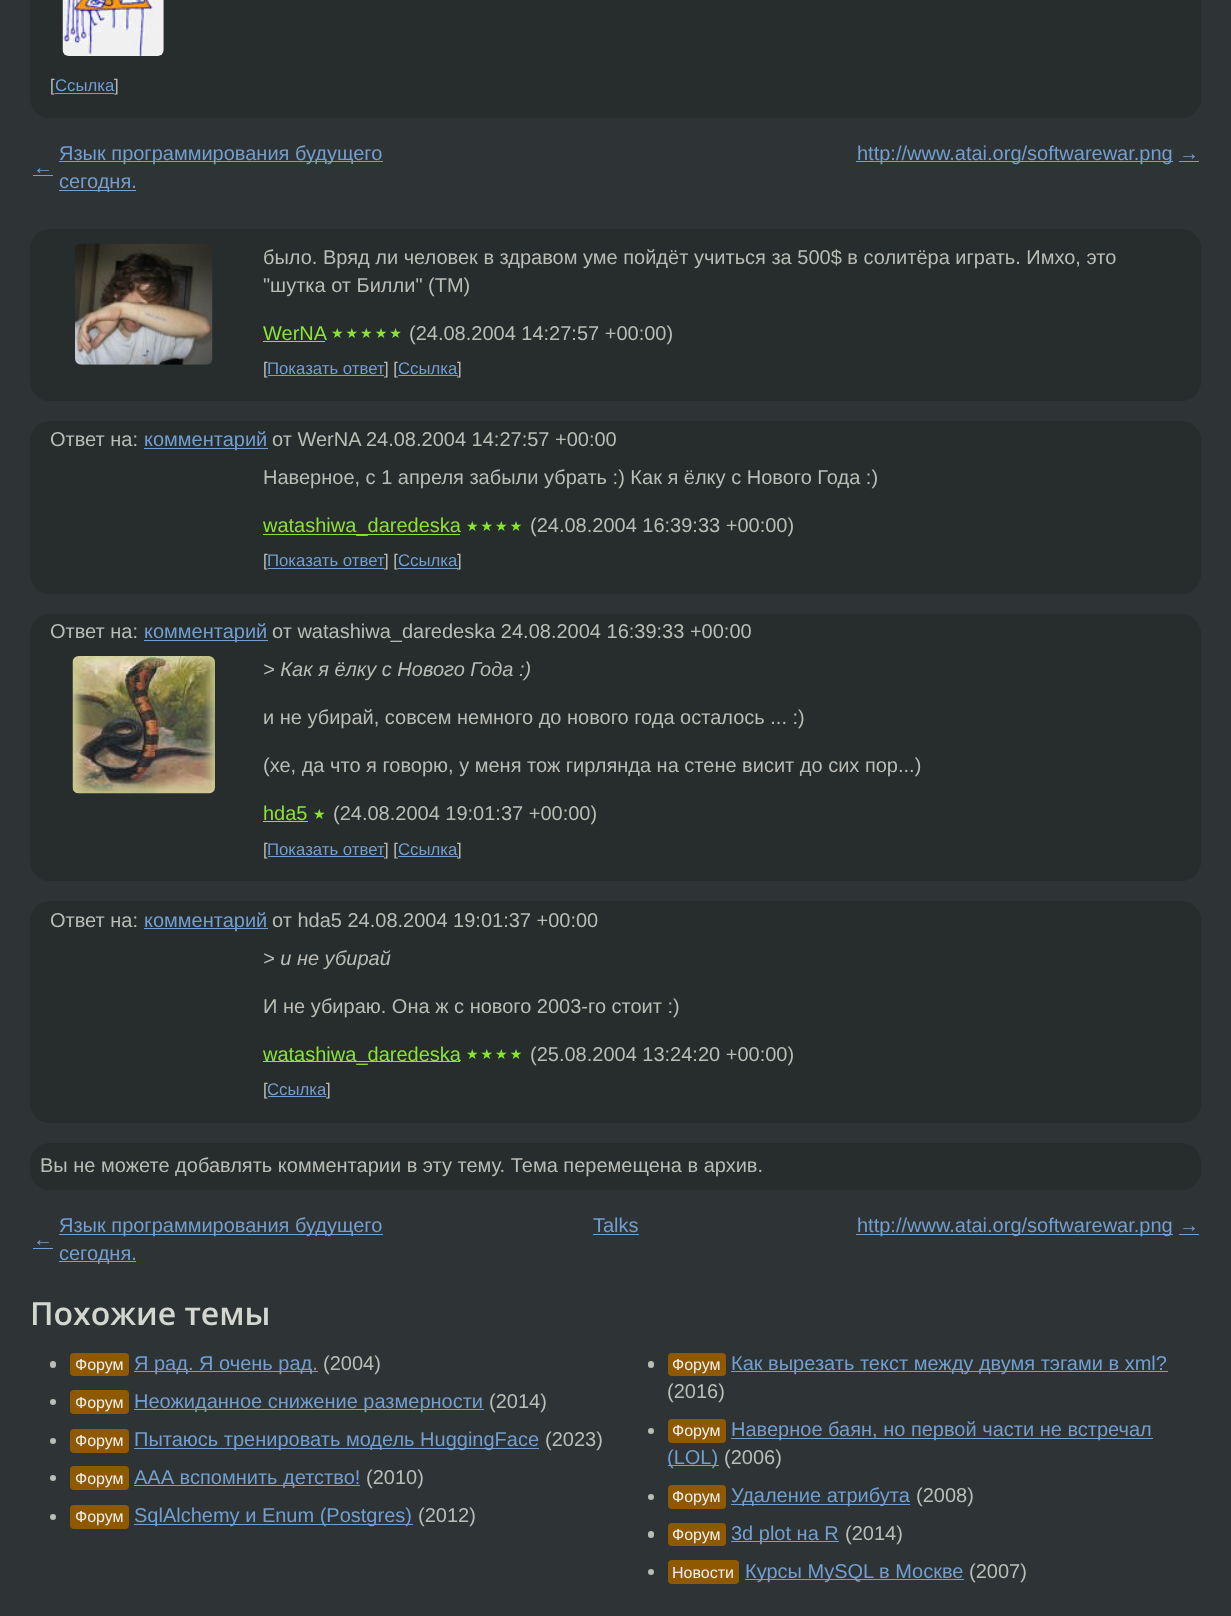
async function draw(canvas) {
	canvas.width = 1231;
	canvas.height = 1616;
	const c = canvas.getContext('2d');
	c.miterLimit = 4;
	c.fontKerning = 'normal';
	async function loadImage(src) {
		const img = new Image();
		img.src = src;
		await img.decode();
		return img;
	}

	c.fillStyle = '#2e3436';
	c.fillRect(0, 0, 1231, 1616);
	c.fillStyle = '#272c2d';
	c.beginPath();
	c.roundRect(30, -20, 1171, 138, 20);
	c.fill();
	c.drawImage(await loadImage('img1.png'), 62, 0, 102, 56);
	c.font = '16.75px Liberation Sans';
	c.fillStyle = '#babdb6';
	c.fillText('[', 50, 91);
	c.fillStyle = '#729fcf';
	c.fillRect(55, 93, 59, 1);
	c.fillText('Ссылка', 55, 91);
	c.fillStyle = '#babdb6';
	c.fillText(']', 114, 91);
	c.font = '20px Liberation Sans';
	c.fillStyle = '#729fcf';
	c.fillText('←', 33, 174);
	c.fillRect(33, 175, 20, 1);
	c.fillRect(59, 161, 324, 1);
	c.fillText('Язык программирования будущего', 59, 160);
	c.fillRect(59, 190, 77, 1);
	c.fillText('сегодня.', 59, 188);
	c.fillRect(856, 161, 317, 1);
	c.fillText('http://www.atai.org/softwarewar.png', 857, 160);
	c.fillText('→', 1179, 160);
	c.fillRect(1179, 161, 20, 1);
	c.fillStyle = '#272c2d';
	c.beginPath();
	c.roundRect(30, 229, 1171, 172, 20);
	c.fill();
	c.drawImage(await loadImage('img2.png'), 75, 243, 138, 122);
	c.fillStyle = '#babdb6';
	c.fillText('было. Вряд ли человек в здравом уме пойдёт учиться за 500$ в солитёра играть. Имхо, это', 263, 264);
	c.fillText('"шутка от Билли" (ТМ)', 263, 292);
	c.fillStyle = '#8ae234';
	c.fillText('WerNA', 263, 340);
	c.fillRect(263, 341, 62, 1);
	c.letterSpacing = '2px';
	c.font = '14px DejaVu Sans';
	c.fillText('★★★★★', 331, 338);
	c.letterSpacing = '0px';
	c.font = '20px Liberation Sans';
	c.fillStyle = '#babdb6';
	c.fillText('(24.08.2004 14:27:57 +00:00)', 409, 340);
	c.font = '16.75px Liberation Sans';
	c.fillText('[', 263, 374);
	c.fillStyle = '#729fcf';
	c.fillText('Показать ответ', 267, 374);
	c.fillStyle = '#babdb6';
	c.fillText('] [', 384, 374);
	c.fillStyle = '#729fcf';
	c.fillRect(268, 375, 116, 1);
	c.fillRect(398, 375, 60, 1);
	c.fillText('Ссылка', 398, 374);
	c.fillStyle = '#babdb6';
	c.fillText(']', 457, 374);
	c.fillStyle = '#272c2d';
	c.beginPath();
	c.roundRect(30, 421, 1171, 173, 20);
	c.fill();
	c.font = '20px Liberation Sans';
	c.fillStyle = '#babdb6';
	c.fillText('Ответ на:', 50, 446);
	c.fillStyle = '#729fcf';
	c.fillRect(144, 448, 124, 1);
	c.fillText('комментарий', 144, 446);
	c.fillStyle = '#babdb6';
	c.fillText('от WerNA 24.08.2004 14:27:57 +00:00', 272, 446);
	c.fillText('Наверное, с 1 апреля забыли убрать :) Как я ёлку с Нового Года :)', 263, 484);
	c.fillStyle = '#8ae234';
	c.fillRect(263, 534, 197, 1);
	c.fillText('watashiwa_daredeska', 263, 532);
	c.letterSpacing = '2px';
	c.font = '14px DejaVu Sans';
	c.fillText('★★★★', 466, 531);
	c.letterSpacing = '0px';
	c.font = '20px Liberation Sans';
	c.fillStyle = '#babdb6';
	c.fillText('(24.08.2004 16:39:33 +00:00)', 530, 532);
	c.font = '16.75px Liberation Sans';
	c.fillText('[', 263, 566);
	c.fillStyle = '#729fcf';
	c.fillText('Показать ответ', 267, 566);
	c.fillStyle = '#babdb6';
	c.fillText('] [', 384, 566);
	c.fillStyle = '#729fcf';
	c.fillRect(268, 568, 116, 1);
	c.fillRect(398, 568, 60, 1);
	c.fillText('Ссылка', 398, 566);
	c.fillStyle = '#babdb6';
	c.fillText(']', 457, 566);
	c.fillStyle = '#272c2d';
	c.beginPath();
	c.roundRect(30, 614, 1171, 267, 20);
	c.fill();
	c.font = '20px Liberation Sans';
	c.fillStyle = '#babdb6';
	c.fillText('Ответ на:', 50, 638);
	c.fillStyle = '#729fcf';
	c.fillRect(144, 640, 124, 1);
	c.fillText('комментарий', 144, 638);
	c.fillStyle = '#babdb6';
	c.fillText('от watashiwa_daredeska 24.08.2004 16:39:33 +00:00', 272, 638);
	c.drawImage(await loadImage('img3.png'), 72, 656, 143, 138);
	c.font = 'italic 20px Liberation Sans';
	c.fillText('> Как я ёлку с Нового Года :)', 263, 676);
	c.font = '20px Liberation Sans';
	c.fillText('и не убирай, совсем немного до нового года осталось ... :)', 263, 724);
	c.fillText('(хе, да что я говорю, у меня тож гирлянда на стене висит до сих пор...)', 263, 772);
	c.fillStyle = '#8ae234';
	c.fillText('hda5', 263, 820);
	c.fillRect(263, 821, 45, 1);
	c.letterSpacing = '2px';
	c.font = '14px DejaVu Sans';
	c.fillText('★', 313, 819);
	c.letterSpacing = '0px';
	c.font = '20px Liberation Sans';
	c.fillStyle = '#babdb6';
	c.fillText('(24.08.2004 19:01:37 +00:00)', 333, 820);
	c.font = '16.75px Liberation Sans';
	c.fillText('[', 263, 855);
	c.fillStyle = '#729fcf';
	c.fillText('Показать ответ', 267, 855);
	c.fillStyle = '#babdb6';
	c.fillText('] [', 384, 855);
	c.fillStyle = '#729fcf';
	c.fillRect(268, 856, 116, 1);
	c.fillRect(398, 856, 60, 1);
	c.fillText('Ссылка', 398, 855);
	c.fillStyle = '#babdb6';
	c.fillText(']', 457, 855);
	c.fillStyle = '#272c2d';
	c.beginPath();
	c.roundRect(30, 901, 1171, 222, 20);
	c.fill();
	c.font = '20px Liberation Sans';
	c.fillStyle = '#babdb6';
	c.fillText('Ответ на:', 50, 927);
	c.fillStyle = '#729fcf';
	c.fillRect(144, 928, 124, 1);
	c.fillText('комментарий', 144, 927);
	c.fillStyle = '#babdb6';
	c.fillText('от hda5 24.08.2004 19:01:37 +00:00', 272, 927);
	c.font = 'italic 20px Liberation Sans';
	c.fillText('> и не убирай', 263, 965);
	c.font = '20px Liberation Sans';
	c.fillText('И не убираю. Она ж с нового 2003-го стоит :)', 263, 1013);
	c.fillStyle = '#8ae234';
	c.fillRect(263, 1061, 197, 1);
	c.fillText('watashiwa_daredeska', 263, 1061);
	c.letterSpacing = '2px';
	c.font = '14px DejaVu Sans';
	c.fillText('★★★★', 466, 1059);
	c.letterSpacing = '0px';
	c.font = '20px Liberation Sans';
	c.fillStyle = '#babdb6';
	c.fillText('(25.08.2004 13:24:20 +00:00)', 530, 1061);
	c.font = '16.75px Liberation Sans';
	c.fillText('[', 263, 1095);
	c.fillStyle = '#729fcf';
	c.fillText('Ссылка', 267, 1095);
	c.fillStyle = '#babdb6';
	c.fillText(']', 326, 1095);
	c.fillStyle = '#729fcf';
	c.fillRect(268, 1096, 58, 1);
	c.fillStyle = '#272c2d';
	c.beginPath();
	c.roundRect(30, 1143, 1171, 47, 20);
	c.fill();
	c.font = '20px Liberation Sans';
	c.fillStyle = '#babdb6';
	c.fillText('Вы не можете добавлять комментарии в эту тему. Тема перемещена в архив.', 40, 1172);
	c.fillStyle = '#729fcf';
	c.fillText('←', 33, 1246);
	c.fillRect(33, 1248, 20, 1);
	c.fillRect(59, 1234, 324, 1);
	c.fillText('Язык программирования будущего', 59, 1232);
	c.fillRect(59, 1261, 77, 1);
	c.fillText('сегодня.', 59, 1260);
	c.fillText('Talks', 593, 1232);
	c.fillRect(593, 1234, 46, 1);
	c.fillRect(856, 1234, 317, 1);
	c.fillText('http://www.atai.org/softwarewar.png', 857, 1232);
	c.fillText('→', 1179, 1232);
	c.fillRect(1179, 1234, 20, 1);
	c.font = '600 32px Open Sans';
	c.fillStyle = '#d3d7cf';
	c.fillText('Похожие темы', 30, 1325);
	c.fillStyle = '#babdb6';
	c.beginPath();
	c.roundRect(50, 1361, 6, 7, 3);
	c.fill();
	c.fillStyle = '#8f5902';
	c.beginPath();
	c.roundRect(70, 1353, 59, 23, 4);
	c.fill();
	c.font = '16px Liberation Sans';
	c.fillStyle = '#eeeeec';
	c.fillText('Форум', 75, 1370);
	c.fillStyle = '#729fcf';
	c.fillRect(134, 1371, 184, 1);
	c.font = '20px Liberation Sans';
	c.fillText('Я рад. Я очень рад.', 134, 1370);
	c.fillStyle = '#babdb6';
	c.fillText('(2004)', 323, 1370);
	c.beginPath();
	c.arc(53, 1402, 3, 0, 2 * Math.PI);
	c.fill();
	c.fillStyle = '#8f5902';
	c.beginPath();
	c.roundRect(70, 1390, 59, 24, 4);
	c.fill();
	c.font = '16px Liberation Sans';
	c.fillStyle = '#eeeeec';
	c.fillText('Форум', 75, 1408);
	c.fillStyle = '#729fcf';
	c.fillRect(134, 1409, 350, 1);
	c.font = '20px Liberation Sans';
	c.fillText('Неожиданное снижение размерности', 134, 1408);
	c.fillStyle = '#babdb6';
	c.fillText('(2014)', 489, 1408);
	c.beginPath();
	c.arc(53, 1441, 3, 0, 2 * Math.PI);
	c.fill();
	c.fillStyle = '#8f5902';
	c.beginPath();
	c.roundRect(70, 1429, 59, 24, 4);
	c.fill();
	c.font = '16px Liberation Sans';
	c.fillStyle = '#eeeeec';
	c.fillText('Форум', 75, 1446);
	c.fillStyle = '#729fcf';
	c.fillRect(134, 1448, 405, 1);
	c.font = '20px Liberation Sans';
	c.fillText('Пытаюсь тренировать модель HuggingFace', 134, 1446);
	c.fillStyle = '#babdb6';
	c.fillText('(2023)', 545, 1446);
	c.beginPath();
	c.arc(53, 1478, 3, 0, 2 * Math.PI);
	c.fill();
	c.fillStyle = '#8f5902';
	c.beginPath();
	c.roundRect(70, 1466, 59, 24, 4);
	c.fill();
	c.font = '16px Liberation Sans';
	c.fillStyle = '#eeeeec';
	c.fillText('Форум', 75, 1484);
	c.fillStyle = '#729fcf';
	c.fillRect(134, 1485, 226, 1);
	c.font = '20px Liberation Sans';
	c.fillText('ААА вспомнить детство!', 134, 1484);
	c.fillStyle = '#babdb6';
	c.fillText('(2010)', 366, 1484);
	c.beginPath();
	c.arc(53, 1517, 3, 0, 2 * Math.PI);
	c.fill();
	c.fillStyle = '#8f5902';
	c.beginPath();
	c.roundRect(70, 1505, 59, 24, 4);
	c.fill();
	c.font = '16px Liberation Sans';
	c.fillStyle = '#eeeeec';
	c.fillText('Форум', 75, 1522);
	c.fillStyle = '#729fcf';
	c.fillRect(134, 1524, 279, 1);
	c.font = '20px Liberation Sans';
	c.fillText('SqlAlchemy и Enum (Postgres)', 134, 1522);
	c.fillStyle = '#babdb6';
	c.fillText('(2012)', 418, 1522);
	c.beginPath();
	c.roundRect(648, 1361, 6, 7, 3);
	c.fill();
	c.fillStyle = '#8f5902';
	c.beginPath();
	c.roundRect(668, 1353, 58, 23, 4);
	c.fill();
	c.font = '16px Liberation Sans';
	c.fillStyle = '#eeeeec';
	c.fillText('Форум', 672, 1370);
	c.fillStyle = '#729fcf';
	c.fillRect(731, 1371, 437, 1);
	c.font = '20px Liberation Sans';
	c.fillText('Как вырезать текст между двумя тэгами в xml?', 731, 1370);
	c.fillStyle = '#babdb6';
	c.fillText('(2016)', 667, 1398);
	c.beginPath();
	c.arc(651, 1431, 3, 0, 2 * Math.PI);
	c.fill();
	c.fillStyle = '#8f5902';
	c.beginPath();
	c.roundRect(668, 1419, 58, 24, 4);
	c.fill();
	c.font = '16px Liberation Sans';
	c.fillStyle = '#eeeeec';
	c.fillText('Форум', 672, 1436);
	c.fillStyle = '#729fcf';
	c.fillRect(731, 1438, 422, 1);
	c.font = '20px Liberation Sans';
	c.fillText('Наверное баян, но первой части не встречал', 731, 1436);
	c.fillRect(668, 1465, 51, 1);
	c.fillText('(LOL)', 667, 1464);
	c.fillStyle = '#babdb6';
	c.fillText('(2006)', 724, 1464);
	c.beginPath();
	c.arc(651, 1497, 3, 0, 2 * Math.PI);
	c.fill();
	c.fillStyle = '#8f5902';
	c.beginPath();
	c.roundRect(668, 1485, 58, 24, 4);
	c.fill();
	c.font = '16px Liberation Sans';
	c.fillStyle = '#eeeeec';
	c.fillText('Форум', 672, 1502);
	c.fillStyle = '#729fcf';
	c.fillRect(731, 1504, 179, 1);
	c.font = '20px Liberation Sans';
	c.fillText('Удаление атрибута', 731, 1502);
	c.fillStyle = '#babdb6';
	c.fillText('(2008)', 916, 1502);
	c.beginPath();
	c.roundRect(648, 1531, 6, 7, 3);
	c.fill();
	c.fillStyle = '#8f5902';
	c.beginPath();
	c.roundRect(668, 1523, 58, 23, 4);
	c.fill();
	c.font = '16px Liberation Sans';
	c.fillStyle = '#eeeeec';
	c.fillText('Форум', 672, 1540);
	c.fillStyle = '#729fcf';
	c.fillRect(731, 1541, 108, 1);
	c.font = '20px Liberation Sans';
	c.fillText('3d plot на R', 731, 1540);
	c.fillStyle = '#babdb6';
	c.fillText('(2014)', 845, 1540);
	c.beginPath();
	c.arc(651, 1572, 3, 0, 2 * Math.PI);
	c.fill();
	c.fillStyle = '#8f5902';
	c.beginPath();
	c.roundRect(668, 1560, 71, 24, 4);
	c.fill();
	c.font = '16px Liberation Sans';
	c.fillStyle = '#eeeeec';
	c.fillText('Новости', 672, 1578);
	c.fillStyle = '#729fcf';
	c.fillRect(745, 1579, 219, 1);
	c.font = '20px Liberation Sans';
	c.fillText('Курсы MySQL в Москве', 745, 1578);
	c.fillStyle = '#babdb6';
	c.fillText('(2007)', 969, 1578);
}

draw(document.querySelector('canvas'));
